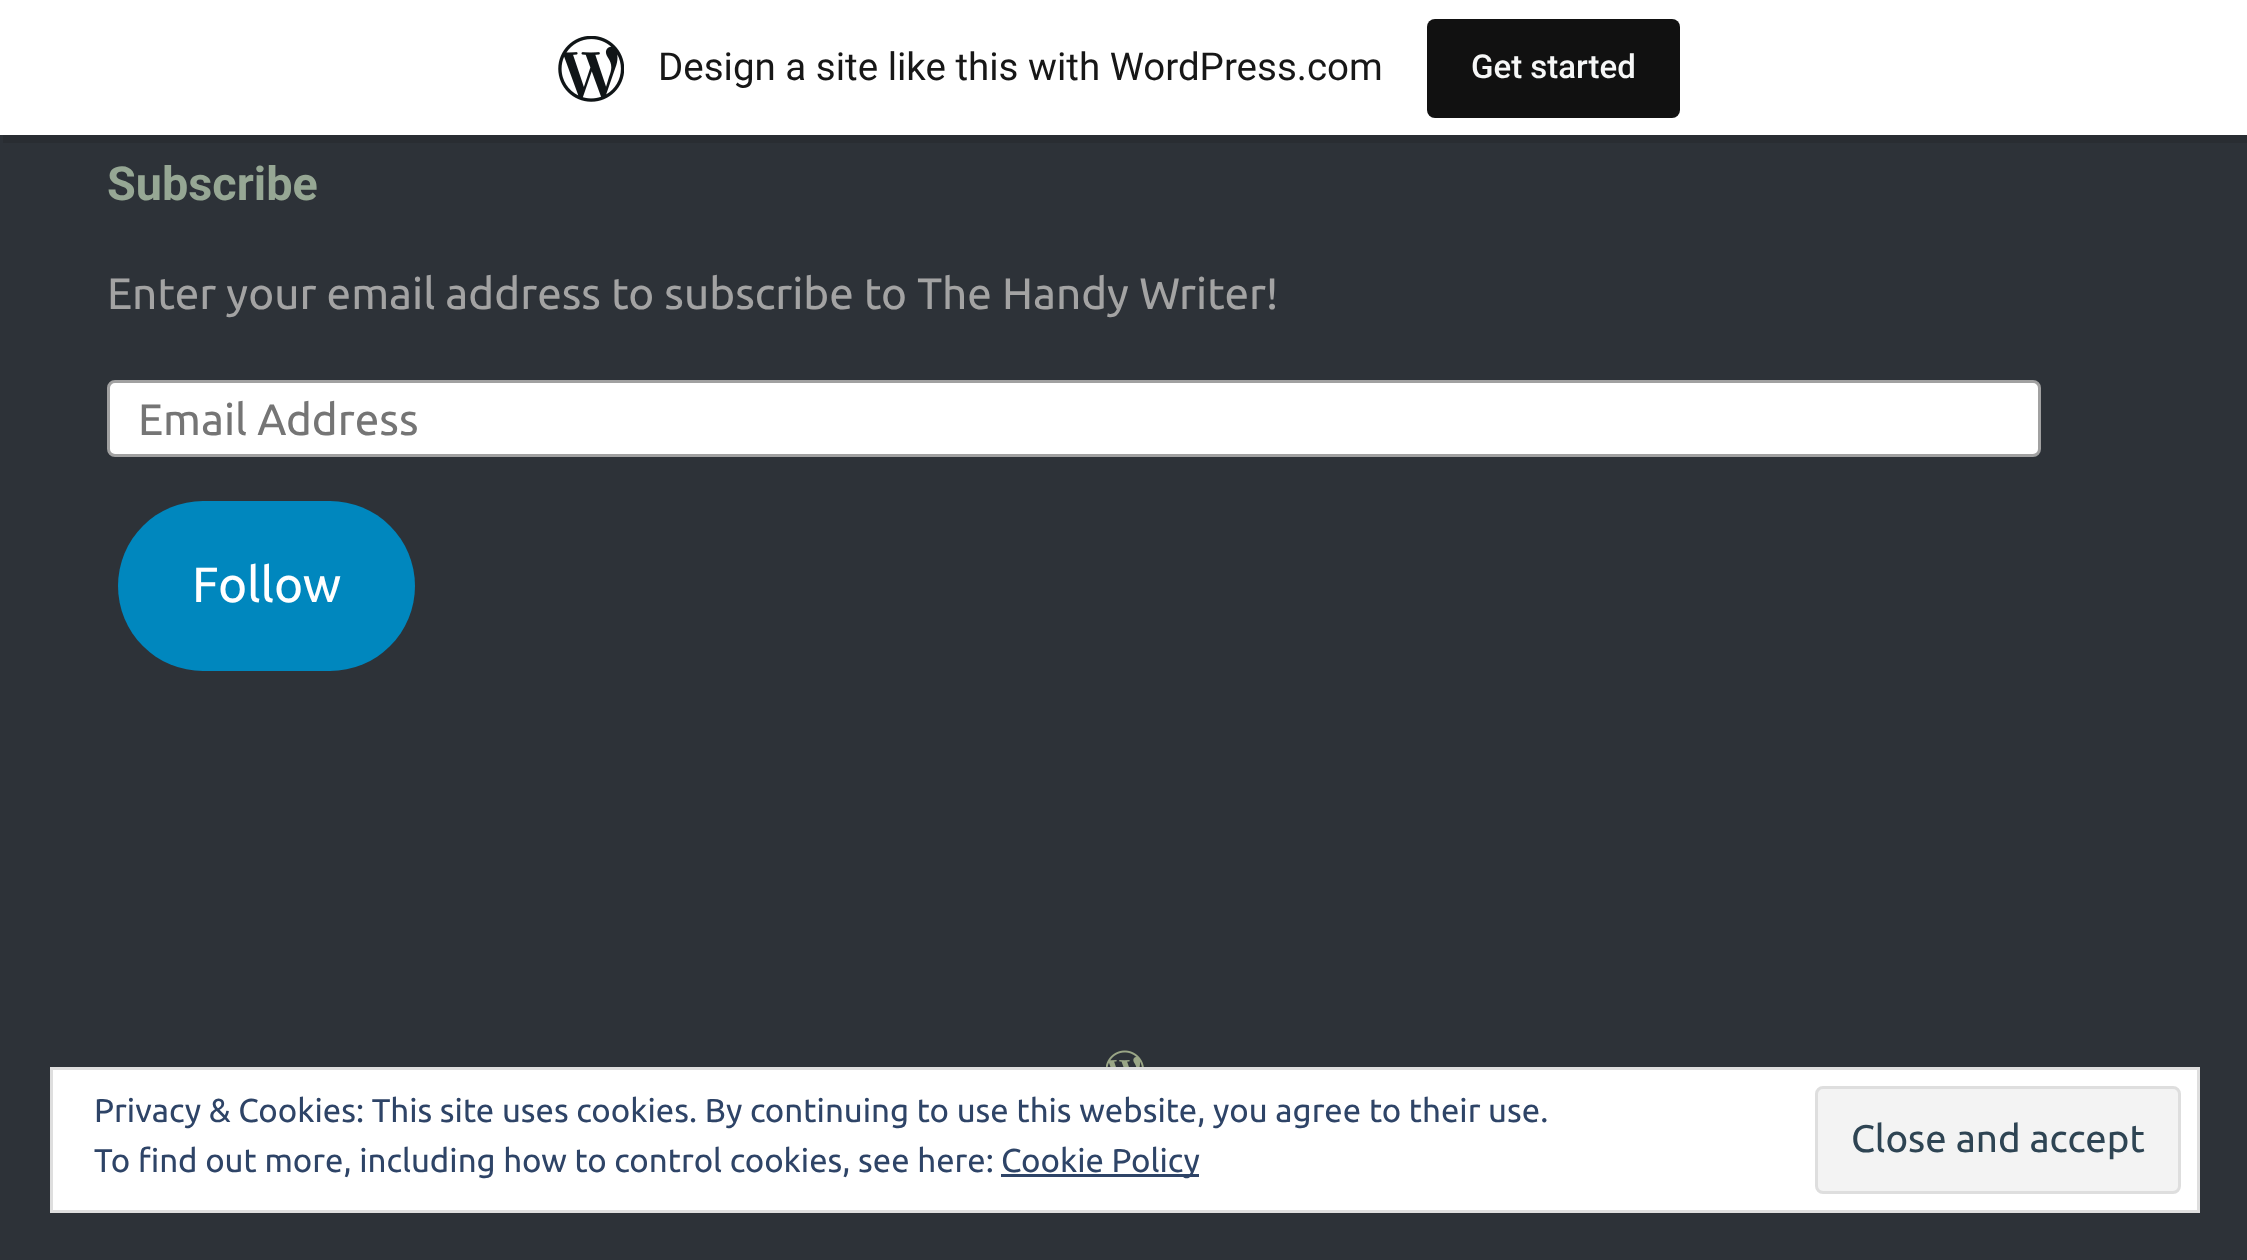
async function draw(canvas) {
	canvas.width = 2247;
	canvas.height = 1260;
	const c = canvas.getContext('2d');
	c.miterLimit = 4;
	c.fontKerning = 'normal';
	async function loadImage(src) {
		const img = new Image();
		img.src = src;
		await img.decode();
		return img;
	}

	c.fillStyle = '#2d3238';
	c.fillRect(0, 0, 2247, 1260);
	c.fillStyle = '#292d32';
	c.beginPath();
	c.moveTo(3, 135);
	c.lineTo(3, 143);
	c.lineTo(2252, 143);
	c.lineTo(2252, 8);
	c.lineTo(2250, 8);
	c.lineTo(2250, 135);
	c.closePath();
	c.fill();
	c.fillStyle = '#fff';
	c.fillRect(0, 0, 2247, 135);
	c.drawImage(await loadImage('img1.png'), 558, 36, 66, 66);
	c.font = '38.5px Roboto';
	c.fillStyle = '#171717';
	c.fillText('Design a site like this with WordPress.com', 658, 80);
	c.fillStyle = '#111';
	c.beginPath();
	c.roundRect(1427, 19, 253, 99, 8);
	c.fill();
	c.font = '500 33px Roboto';
	c.fillStyle = '#f6f7f7';
	c.fillText('Get started', 1471, 78);
	c.font = 'bold 46.75px Roboto';
	c.fillStyle = '#96a794';
	c.fillText('Subscribe', 107, 200);
	c.font = '44px Ubuntu';
	c.fillStyle = '#a3a3a3';
	c.fillText('Enter your email address to subscribe to The Handy Writer!', 107, 309);
	c.fillStyle = '#fff';
	c.beginPath();
	c.roundRect(108.5, 381.5, 1931, 74, 6.5);
	c.fill();
	c.strokeStyle = '#a1a1a1';
	c.lineWidth = 3;
	c.stroke();
	c.fillStyle = '#757575';
	c.fillText('Email Address', 138, 435);
	c.fillStyle = '#0087be';
	c.beginPath();
	c.roundRect(118, 501, 297, 170, 85);
	c.fill();
	c.font = '49.5px Ubuntu';
	c.fillStyle = '#fff';
	c.fillText('Follow', 192, 602);
	c.drawImage(await loadImage('img2.png'), 1106, 1050, 38, 17);
	c.beginPath();
	c.rect(51.5, 1068.5, 2147, 143);
	c.fill();
	c.strokeStyle = '#dedede';
	c.stroke();
	c.font = '33px Ubuntu';
	c.fillStyle = '#2e4467';
	c.fillText('Privacy & Cookies: This site uses cookies. By continuing to use this website, you agree to their use.', 94, 1122);
	c.fillText('To find out more, including how to control cookies, see here:', 94, 1172);
	c.fillRect(1001, 1174, 198, 3);
	c.fillText('Cookie Policy', 1001, 1172);
	c.fillStyle = '#f3f3f3';
	c.beginPath();
	c.roundRect(1816.5, 1087.5, 363, 105, 6.5);
	c.fill();
	c.stroke();
	c.font = '38.5px Ubuntu';
	c.fillStyle = '#2e4453';
	c.fillText('Close and accept', 1851, 1152);
}

draw(document.querySelector('canvas'));
